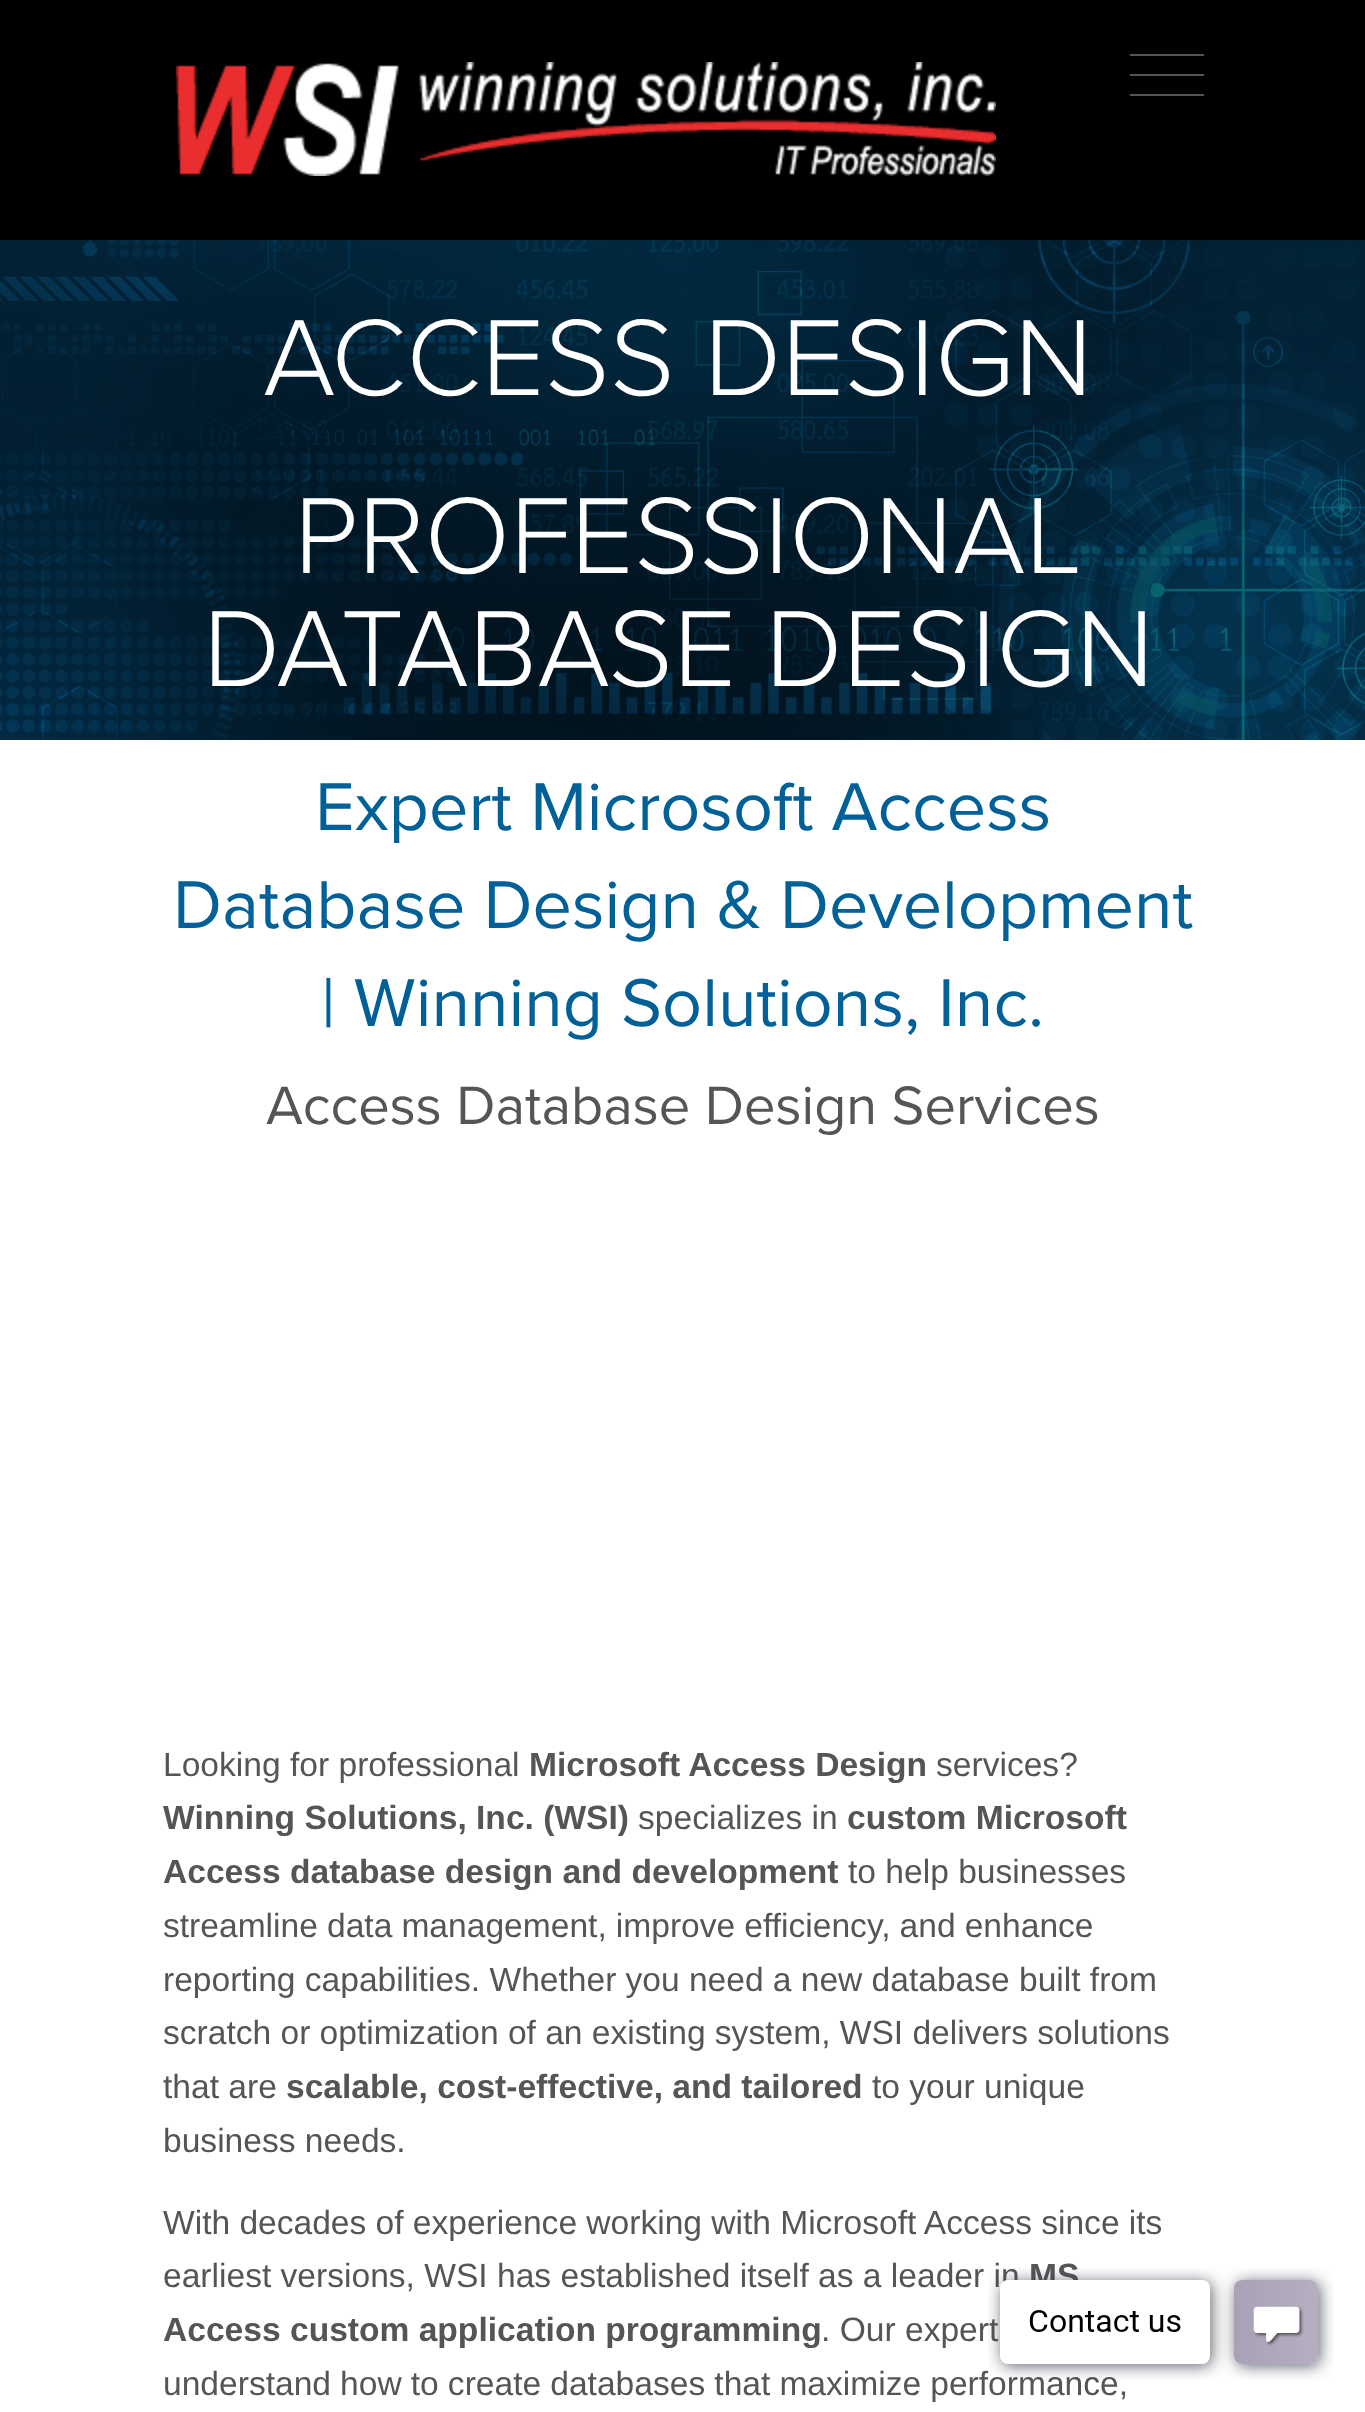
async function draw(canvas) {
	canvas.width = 1365;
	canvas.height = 2412;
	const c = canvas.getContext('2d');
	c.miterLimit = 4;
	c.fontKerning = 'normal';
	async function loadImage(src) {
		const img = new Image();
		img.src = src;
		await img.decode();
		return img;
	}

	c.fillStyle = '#fff';
	c.fillRect(0, 0, 1365, 2412);
	c.fillStyle = '#000';
	c.fillRect(0, 0, 1365, 240);
	c.drawImage(await loadImage('img1.png'), 176, 62, 820, 114);
	for (const [x, y, w, h, color] of [
		[1130, 54, 74, 2, '#555'],
		[1130, 74, 74, 2, '#555'],
		[1130, 94, 74, 2, '#555'],
	]) {
		c.fillStyle = color;
		c.fillRect(x, y, w, h);
	}
	c.drawImage(await loadImage('img2.png'), 0, 240, 1365, 500);
	c.font = '300 112px Proxima Nova';
	c.fillStyle = '#fff';
	for (const [text, x, y] of [
		['ACCESS DESIGN', 263, 395],
		['PROFESSIONAL', 294, 573],
		['DATABASE DESIGN', 203, 686],
	]) {
		c.fillText(text, x, y);
	}
	c.font = '70px Proxima Nova';
	c.fillStyle = '#006097';
	for (const [text, x, y] of [
		['Expert Microsoft Access', 315, 830],
		['Database Design & Development', 173, 928],
		['| Winning Solutions, Inc.', 321, 1026],
	]) {
		c.fillText(text, x, y);
	}
	c.font = '56px Proxima Nova';
	c.fillStyle = '#555';
	c.fillText('Access Database Design Services', 266, 1124);
	c.font = '33.6px Liberation Sans';
	c.fillText('Looking for professional', 163, 1776);
	c.font = 'bold 33.6px Liberation Sans';
	c.fillText('Microsoft Access Design', 529, 1776);
	c.font = '33.6px Liberation Sans';
	c.fillText('services?', 936, 1776);
	c.font = 'bold 33.6px Liberation Sans';
	c.fillText('Winning Solutions, Inc. (WSI)', 163, 1829);
	c.font = '33.6px Liberation Sans';
	c.fillText('specializes in', 638, 1829);
	c.font = 'bold 33.6px Liberation Sans';
	c.fillText('custom Microsoft', 847, 1829);
	c.fillText('Access database design and development', 163, 1883);
	c.font = '33.6px Liberation Sans';
	c.fillText('to help businesses', 848, 1883);
	c.wordSpacing = '-0.25px';
	c.fillText('streamline data management, improve efficiency, and enhance', 163, 1937);
	c.wordSpacing = '-0.1px';
	c.fillText('reporting capabilities. Whether you need a new database built from', 163, 1991);
	c.fillText('scratch or optimization of an existing system, WSI delivers solutions', 163, 2044);
	c.wordSpacing = '0px';
	c.fillText('that are', 163, 2098);
	c.font = 'bold 33.6px Liberation Sans';
	c.fillText('scalable, cost-effective, and tailored', 286, 2098);
	c.font = '33.6px Liberation Sans';
	c.fillText('to your unique', 872, 2098);
	c.fillText('business needs.', 163, 2152);
	c.wordSpacing = '-0.1px';
	c.fillText('With decades of experience working with Microsoft Access since its', 163, 2234);
	c.wordSpacing = '0px';
	c.fillText('earliest versions, WSI has established itself as a leader in', 163, 2287);
	c.font = 'bold 33.6px Liberation Sans';
	c.fillText('MS', 1029, 2287);
	c.fillText('Access custom application programming', 163, 2341);
	c.font = '33.6px Liberation Sans';
	c.fillText('. Our expert', 821, 2341);
	c.wordSpacing = '-0.25px';
	c.fillText('understand how to create databases that maximize performance,', 163, 2395);
	c.drawImage(await loadImage('img3.png'), 988, 2268, 346, 112);
}

draw(document.querySelector('canvas'));
